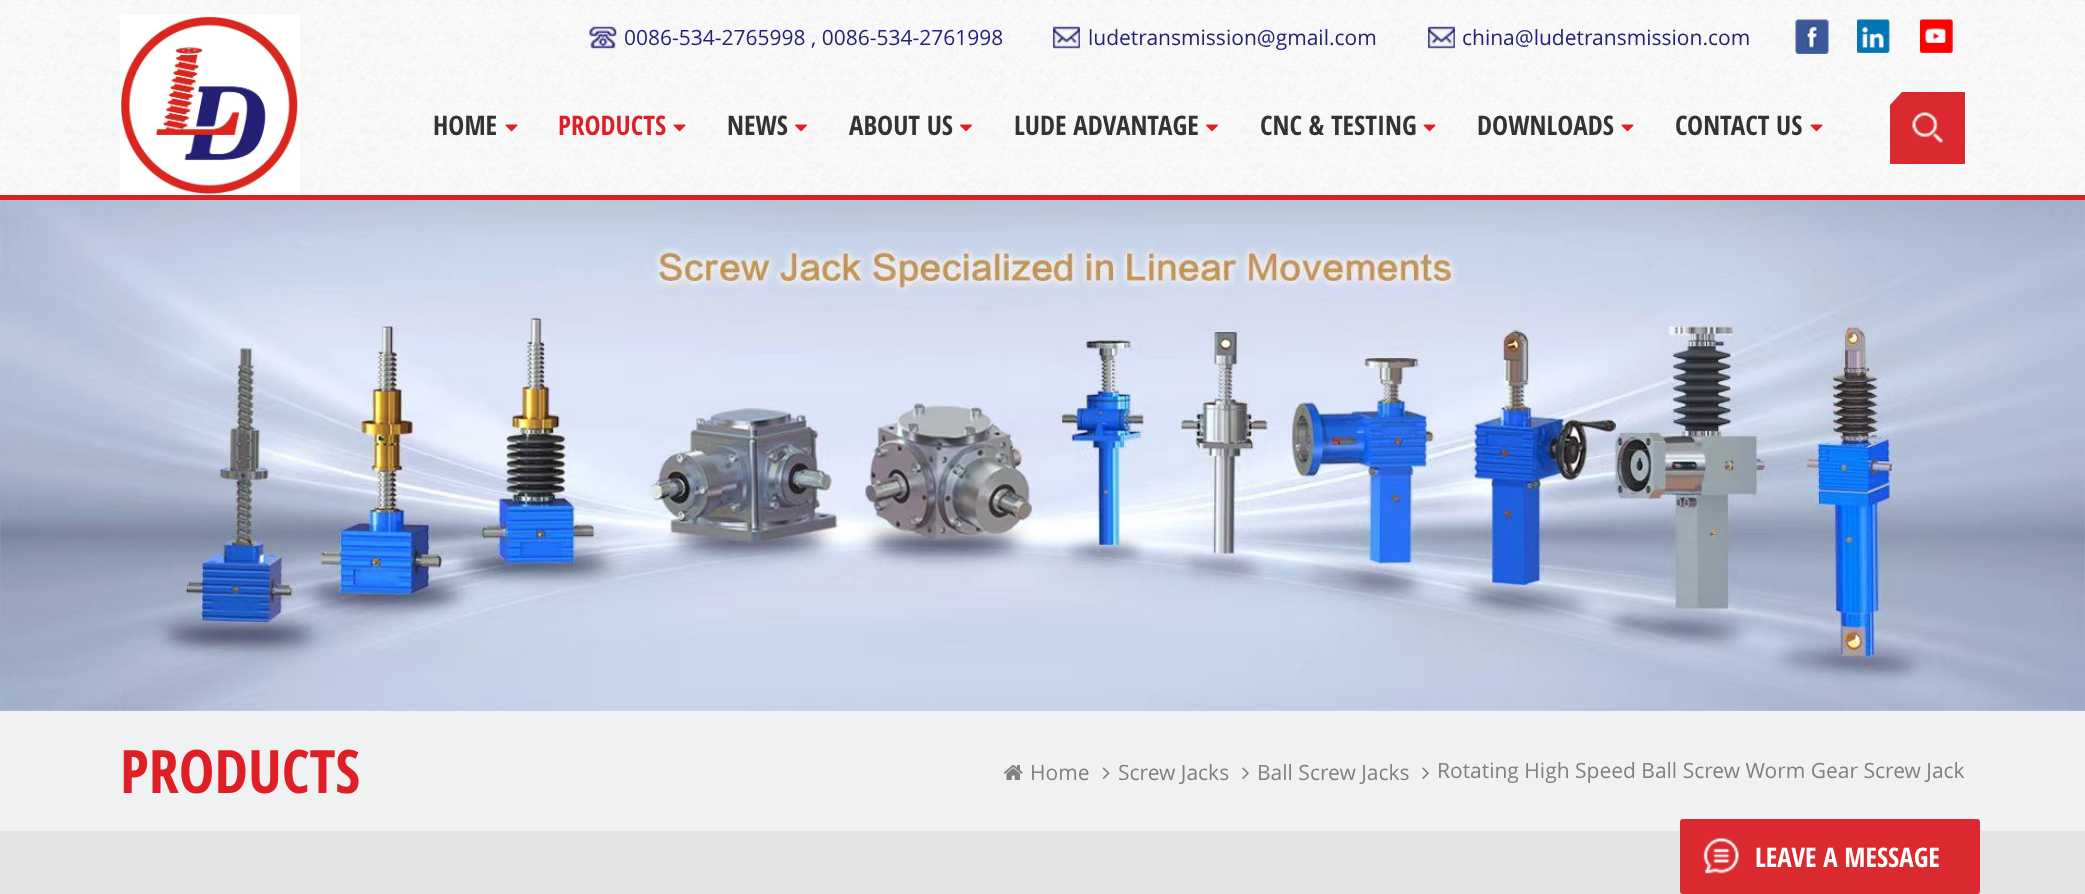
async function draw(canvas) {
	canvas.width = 2085;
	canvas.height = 894;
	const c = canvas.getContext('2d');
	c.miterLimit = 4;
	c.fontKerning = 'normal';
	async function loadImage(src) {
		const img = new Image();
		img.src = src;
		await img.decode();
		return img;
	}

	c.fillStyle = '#fff';
	c.fillRect(0, 0, 2085, 894);
	c.drawImage(await loadImage('img17.png'), 0, 200, 2085, 511);
	c.fillStyle = '#0000000d';
	c.filter = 'blur(19px)';
	c.beginPath();
	c.rect(-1, 14, 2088, 202);
	c.fill();
	c.filter = 'none';
	c.drawImage(await loadImage('img1.png'), 0, 0, 2085, 195);
	c.fillStyle = '#de1f26';
	c.fillRect(0, 195, 2085, 5);
	c.drawImage(await loadImage('img2.png'), 120, 15, 180, 180);
	c.drawImage(await loadImage('img3.png'), 589, 26, 28, 23);
	c.font = '21px Open Sans';
	c.fillStyle = '#262175';
	c.fillText('0086-534-2765998 , 0086-534-2761998', 624, 45);
	c.drawImage(await loadImage('img4.png'), 1053, 26, 27, 23);
	c.fillText('ludetransmission@gmail.com', 1088, 45);
	c.drawImage(await loadImage('img5.png'), 1428, 26, 27, 23);
	c.fillText('china@ludetransmission.com', 1462, 45);
	c.drawImage(await loadImage('img6.png'), 1795, 19, 34, 35);
	c.drawImage(await loadImage('img7.png'), 1857, 19, 33, 34);
	c.drawImage(await loadImage('img8.png'), 1920, 19, 33, 34);
	c.font = 'bold 27px Open Sans Condensed';
	c.fillStyle = '#333';
	c.fillText('HOME', 433, 135);
	c.drawImage(await loadImage('img9.png'), 505, 124, 13, 8);
	c.fillStyle = '#de1f26';
	c.fillText('PRODUCTS', 558, 135);
	c.drawImage(await loadImage('img10.png'), 673, 124, 13, 8);
	c.fillStyle = '#333';
	c.fillText('NEWS', 727, 135);
	c.drawImage(await loadImage('img11.png'), 795, 124, 12, 8);
	c.fillText('ABOUT US', 849, 135);
	c.drawImage(await loadImage('img12.png'), 960, 124, 12, 8);
	c.fillText('LUDE ADVANTAGE', 1014, 135);
	c.drawImage(await loadImage('img13.png'), 1206, 124, 12, 8);
	c.fillText('CNC & TESTING', 1260, 135);
	c.drawImage(await loadImage('img14.png'), 1423, 124, 13, 8);
	c.fillText('DOWNLOADS', 1477, 135);
	c.drawImage(await loadImage('img14.png'), 1621, 124, 13, 8);
	c.fillText('CONTACT US', 1675, 135);
	c.drawImage(await loadImage('img15.png'), 1810, 124, 13, 8);
	c.fillStyle = '#da292f';
	c.beginPath();
	c.moveTo(1890, 105);
	c.lineTo(1902, 92);
	c.lineTo(1965, 92);
	c.lineTo(1965, 164);
	c.lineTo(1890, 164);
	c.closePath();
	c.fill();
	c.drawImage(await loadImage('img16.png'), 1912, 112, 31, 31);
	c.fillStyle = '#f0f1f2';
	c.fillRect(0, 711, 2085, 120);
	c.font = 'bold 60px Open Sans Condensed';
	c.fillStyle = '#de1f26';
	c.fillText('PRODUCTS', 120, 793);
	c.drawImage(await loadImage('img18.png'), 1003, 765, 20, 15);
	c.font = '21px Open Sans';
	c.fillStyle = '#808080';
	c.fillText('Home', 1030, 780);
	c.drawImage(await loadImage('img19.png'), 1102, 767, 8, 12);
	c.fillText('Screw Jacks', 1118, 780);
	c.drawImage(await loadImage('img20.png'), 1242, 767, 7, 12);
	c.fillText('Ball Screw Jacks', 1257, 780);
	c.drawImage(await loadImage('img20.png'), 1422, 767, 7, 12);
	c.fillText('Rotating High Speed Ball Screw Worm Gear Screw Jack', 1437, 778);
	c.fillStyle = '#e3e4e6';
	c.fillRect(0, 831, 2085, 63);
	c.fillStyle = '#da292f';
	c.beginPath();
	c.roundRect(1680, 819, 300, 75, 3);
	c.fill();
	c.drawImage(await loadImage('img21.png'), 1703, 838, 36, 36);
	c.font = 'bold 27px Open Sans Condensed';
	c.fillStyle = '#fff';
	c.fillText('LEAVE A MESSAGE', 1755, 867);
}

draw(document.querySelector('canvas'));
